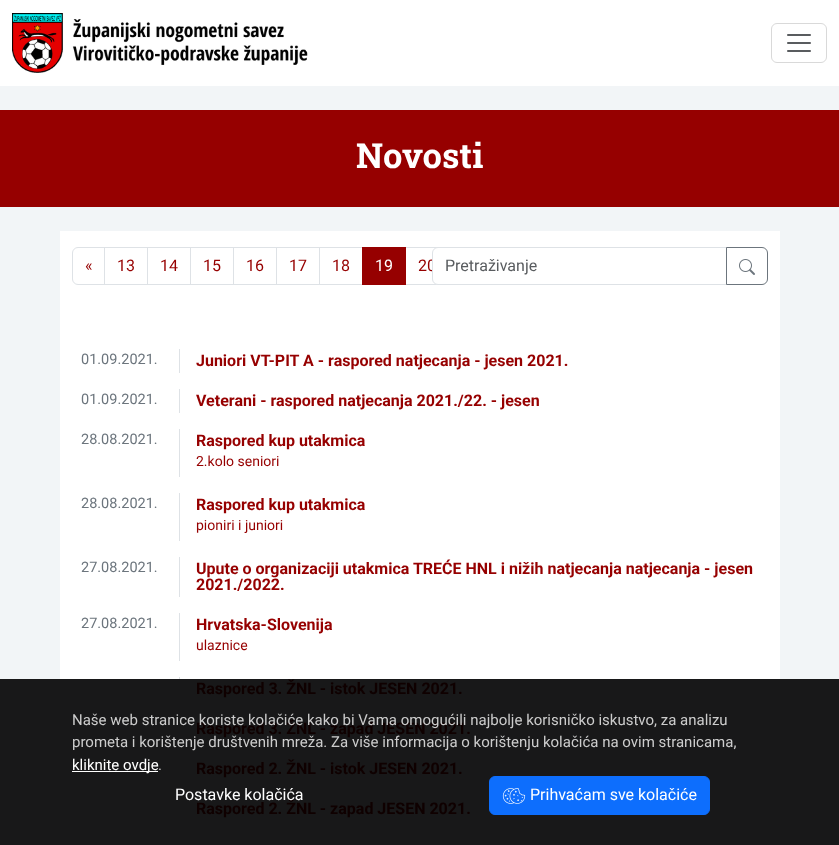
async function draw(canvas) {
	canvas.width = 839;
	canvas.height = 845;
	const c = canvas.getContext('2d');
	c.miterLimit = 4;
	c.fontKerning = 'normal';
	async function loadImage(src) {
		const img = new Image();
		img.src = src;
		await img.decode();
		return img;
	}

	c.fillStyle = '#f2f5f7';
	c.fillRect(0, 0, 839, 845);
	c.fillStyle = '#181819';
	c.fillRect(0, 679, 839, 166);
	c.fillStyle = '#fff';
	c.fillRect(0, 0, 839, 86);
	c.drawImage(await loadImage('img1.png'), 12, 13, 296, 60);
	c.beginPath();
	c.roundRect(771.5, 23.5, 55, 39, 5.5);
	c.strokeStyle = '#d9d9d9';
	c.stroke();
	c.drawImage(await loadImage('img2.png'), 787, 34, 24, 18);
	c.fillStyle = '#960000';
	c.fillRect(0, 110, 839, 97);
	c.font = 'bold 34.5px Roboto Slab';
	c.fillStyle = '#fff';
	c.fillText('Novosti', 356, 168);
	c.fillRect(60, 231, 720, 448);
	c.beginPath();
	c.roundRect(72.5, 247.5, 32, 37, [5.5, 0, 0, 5.5]);
	c.strokeStyle = '#dee2e6';
	c.stroke();
	c.font = '16px Roboto';
	c.fillStyle = '#960000';
	c.fillText('«', 85, 271);
	c.strokeRect(104.5, 247.5, 43, 37);
	c.fillText('13', 117, 271);
	c.strokeRect(147.5, 247.5, 43, 37);
	c.fillText('14', 160, 271);
	c.strokeRect(190.5, 247.5, 43, 37);
	c.fillText('15', 203, 271);
	c.strokeRect(233.5, 247.5, 43, 37);
	c.fillText('16', 246, 271);
	c.strokeRect(276.5, 247.5, 43, 37);
	c.fillText('17', 289, 271);
	c.strokeRect(319.5, 247.5, 43, 37);
	c.fillText('18', 332, 271);
	c.strokeRect(405.5, 247.5, 43, 37);
	c.fillRect(362, 247, 44, 38);
	c.fillStyle = '#fff';
	c.fillText('19', 375, 271);
	c.fillStyle = '#960000';
	c.fillText('20', 418, 271);
	c.fillStyle = '#fff';
	c.beginPath();
	c.roundRect(432.5, 247.5, 294, 37, [5.5, 0, 0, 5.5]);
	c.fill();
	c.stroke();
	c.fillStyle = '#595c5f';
	c.fillText('Pretraživanje', 445, 271);
	c.beginPath();
	c.roundRect(726.5, 247.5, 41, 37, [0, 5.5, 5.5, 0]);
	c.strokeStyle = '#6c757d';
	c.stroke();
	c.drawImage(await loadImage('img3.png'), 739, 259, 16, 16);
	c.fillStyle = '#dee2e6';
	c.fillRect(179, 349, 1, 24);
	c.font = '14.5px Roboto';
	c.fillStyle = '#6c757d';
	c.fillText('01.09.2021.', 81, 364);
	c.font = 'bold 16px Roboto';
	c.fillStyle = '#960000';
	c.fillText('Juniori VT-PIT A - raspored natjecanja - jesen 2021.', 196, 366);
	c.fillStyle = '#dee2e6';
	c.fillRect(179, 389, 1, 24);
	c.font = '14.5px Roboto';
	c.fillStyle = '#6c757d';
	c.fillText('01.09.2021.', 81, 404);
	c.font = 'bold 16px Roboto';
	c.fillStyle = '#960000';
	c.fillText('Veterani - raspored natjecanja 2021./22. - jesen', 196, 406);
	c.fillStyle = '#dee2e6';
	c.fillRect(179, 429, 1, 48);
	c.font = '14.5px Roboto';
	c.fillStyle = '#6c757d';
	c.fillText('28.08.2021.', 81, 444);
	c.font = 'bold 16px Roboto';
	c.fillStyle = '#960000';
	c.fillText('Raspored kup utakmica', 196, 446);
	c.font = '14px Roboto';
	c.fillText('2.kolo seniori', 196, 466);
	c.fillStyle = '#dee2e6';
	c.fillRect(179, 493, 1, 48);
	c.font = '14.5px Roboto';
	c.fillStyle = '#6c757d';
	c.fillText('28.08.2021.', 81, 508);
	c.font = 'bold 16px Roboto';
	c.fillStyle = '#960000';
	c.fillText('Raspored kup utakmica', 196, 510);
	c.font = '14px Roboto';
	c.fillText('pioniri i juniori', 196, 530);
	c.fillStyle = '#dee2e6';
	c.fillRect(179, 557, 1, 40);
	c.font = '14.5px Roboto';
	c.fillStyle = '#6c757d';
	c.fillText('27.08.2021.', 81, 572);
	c.font = 'bold 16px Roboto';
	c.fillStyle = '#960000';
	c.fillText('Upute o organizaciji utakmica TREĆE HNL i nižih natjecanja natjecanja - jesen', 196, 574);
	c.fillText('2021./2022.', 196, 590);
	c.fillStyle = '#dee2e6';
	c.fillRect(179, 613, 1, 48);
	c.font = '14.5px Roboto';
	c.fillStyle = '#6c757d';
	c.fillText('27.08.2021.', 81, 628);
	c.font = 'bold 16px Roboto';
	c.fillStyle = '#960000';
	c.fillText('Hrvatska-Slovenija', 196, 630);
	c.font = '14px Roboto';
	c.fillText('ulaznice', 196, 650);
	c.fillStyle = '#dee2e6';
	c.fillRect(179, 677, 1, 2);
	c.font = 'bold 16px Roboto';
	c.fillStyle = '#0f0000';
	for (const [text, x, y] of [
		['Raspored 3. ŽNL - istok JESEN 2021.', 196, 694],
		['Raspored 3. ŽNL - zapad JESEN 2021.', 196, 734],
		['Raspored 2. ŽNL - istok JESEN 2021.', 196, 774],
		['Raspored 2. ŽNL - zapad JESEN 2021.', 196, 814],
	]) {
		c.fillText(text, x, y);
	}
	c.font = '15px Roboto';
	c.fillStyle = '#ccc';
	c.fillText('Naše web stranice koriste kolačiće kako bi Vama omogućili najbolje korisničko iskustvo, za analizu', 72, 725);
	c.fillText('prometa i korištenje društvenih mreža. Za više informacija o korištenju kolačića na ovim stranicama,', 72, 747);
	c.fillStyle = '#fff';
	c.fillRect(72, 771, 86, 1);
	c.fillText('kliknite ovdje', 72, 770);
	c.fillStyle = '#ccc';
	c.fillText('.', 158, 770);
	c.font = '16px Roboto';
	c.fillStyle = '#fff';
	c.fillText('Postavke kolačića', 175, 800);
	c.fillStyle = '#0d6efd';
	c.beginPath();
	c.roundRect(489.5, 776.5, 220, 38, 5.5);
	c.fill();
	c.strokeStyle = '#0d6efd';
	c.stroke();
	c.drawImage(await loadImage('img4.png'), 502, 788, 24, 16);
	c.fillStyle = '#fff';
	c.fillText('Prihvaćam sve kolačiće', 530, 800);
}

draw(document.querySelector('canvas'));
